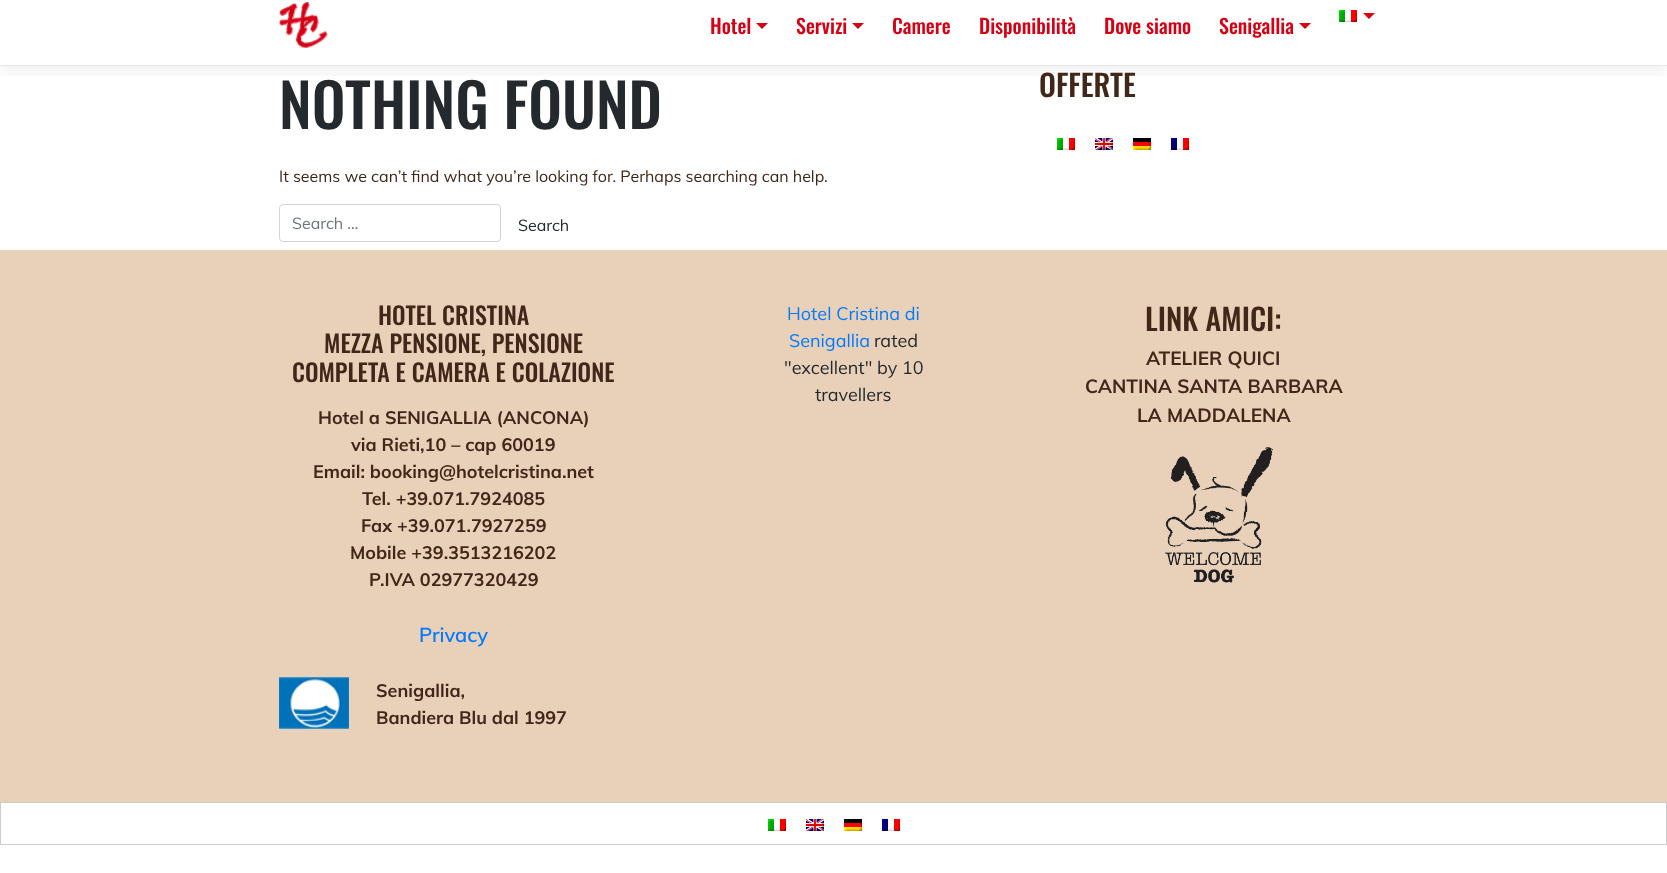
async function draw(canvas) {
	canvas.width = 1667;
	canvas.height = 873;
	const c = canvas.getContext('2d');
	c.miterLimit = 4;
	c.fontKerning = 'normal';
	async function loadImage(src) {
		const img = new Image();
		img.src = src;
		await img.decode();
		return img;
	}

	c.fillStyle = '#fff';
	c.fillRect(0, 0, 1667, 873);
	c.save();
	c.beginPath();
	c.rect(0, 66, 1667, 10);
	c.clip();
	c.fillStyle = '#0000000d';
	c.filter = 'blur(8px)';
	c.beginPath();
	c.rect(0, -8, 1667, 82);
	c.fill();
	c.filter = 'none';
	c.restore();
	c.fillStyle = '#e6e6e6';
	c.fillRect(0, 65, 1667, 1);
	c.drawImage(await loadImage('img1.png'), 279, 2, 49, 46);
	c.font = '500 20px Oswald';
	c.fillStyle = '#d60014';
	c.fillText('Hotel', 710, 34);
	c.beginPath();
	c.moveTo(756, 23);
	c.lineTo(768, 23);
	c.lineTo(762, 29);
	c.closePath();
	c.fill();
	c.fillText('Servizi', 796, 34);
	c.beginPath();
	c.moveTo(852, 23);
	c.lineTo(864, 23);
	c.lineTo(858, 29);
	c.closePath();
	c.fill();
	for (const [text, x, y] of [
		['Camere', 892, 34],
		['Disponibilità', 979, 34],
		['Dove siamo', 1104, 34],
		['Senigallia', 1219, 34],
	]) {
		c.fillText(text, x, y);
	}
	c.beginPath();
	c.moveTo(1299, 23);
	c.lineTo(1311, 23);
	c.lineTo(1305, 29);
	c.closePath();
	c.fill();
	c.drawImage(await loadImage('img2.png'), 1339, 10, 18, 12);
	c.beginPath();
	c.moveTo(1363, 13);
	c.lineTo(1375, 13);
	c.lineTo(1369, 19);
	c.closePath();
	c.fill();
	c.font = '500 60px Oswald';
	c.fillStyle = '#24292e';
	c.fillText('NOTHING FOUND', 279, 129);
	c.font = '16px Muli';
	c.fillStyle = '#402719';
	c.fillText('It seems we can’t find what you’re looking for. Perhaps searching can help.', 279, 182);
	c.beginPath();
	c.roundRect(279.5, 204.5, 221, 37, 3.5);
	c.strokeStyle = '#ced4da';
	c.stroke();
	c.fillStyle = '#6c757d';
	c.fillText('Search …', 292, 229);
	c.fillStyle = '#24292e';
	c.fillText('Search', 518, 231);
	c.font = '500 30px Oswald';
	c.fillStyle = '#402719';
	c.fillText('OFFERTE', 1039, 97);
	c.drawImage(await loadImage('img2.png'), 1057, 138, 18, 12);
	c.drawImage(await loadImage('img3.png'), 1095, 138, 18, 12);
	c.drawImage(await loadImage('img4.png'), 1133, 138, 18, 12);
	c.drawImage(await loadImage('img5.png'), 1171, 138, 18, 12);
	c.fillStyle = '#e9d0b8';
	c.fillRect(0, 250, 1667, 552);
	c.font = '500 24px Oswald';
	c.fillStyle = '#402719';
	for (const [text, x, y] of [
		['HOTEL CRISTINA', 378, 325],
		['MEZZA PENSIONE, PENSIONE', 324, 353],
		['COMPLETA E CAMERA E COLAZIONE', 292, 382],
	]) {
		c.fillText(text, x, y);
	}
	c.font = 'bold 18px Muli';
	for (const [text, x, y] of [
		['Hotel a SENIGALLIA (ANCONA)', 318, 424],
		['via Rieti,10 – cap 60019', 351, 451],
		['Email: booking@hotelcristina.net', 313, 478],
		['Tel. +39.071.7924085', 362, 505],
		['Fax +39.071.7927259', 361, 532],
		['Mobile +39.3513216202', 350, 559],
		['P.IVA 02977320429', 369, 586],
	]) {
		c.fillText(text, x, y);
	}
	c.font = '600 20px Muli';
	c.fillStyle = '#007bff';
	c.fillText('Privacy', 419, 642);
	c.drawImage(await loadImage('img6.png'), 279, 677, 70, 52);
	c.font = 'bold 18px Muli';
	c.fillStyle = '#402719';
	c.fillText('Senigallia,', 376, 697);
	c.fillText('Bandiera Blu dal 1997', 376, 724);
	c.font = '18px Muli';
	c.fillStyle = '#007bff';
	c.fillText('Hotel Cristina di', 787, 320);
	c.fillText('Senigallia', 789, 347);
	c.fillStyle = '#24292e';
	for (const [text, x, y] of [
		['rated', 874, 347],
		['"excellent" by 10', 784, 374],
		['travellers', 815, 401],
	]) {
		c.fillText(text, x, y);
	}
	c.font = '500 30px Oswald';
	c.fillStyle = '#402719';
	c.fillText('LINK AMICI:', 1145, 331);
	c.font = 'bold 19px Muli';
	for (const [text, x, y] of [
		['ATELIER QUICI', 1146, 365],
		['CANTINA SANTA BARBARA', 1085, 393],
		['LA MADDALENA', 1137, 422],
	]) {
		c.fillText(text, x, y);
	}
	c.drawImage(await loadImage('img7.png'), 1165, 447, 108, 136);
	c.strokeStyle = '#cdcdcd';
	c.strokeRect(0.5, 802.5, 1666, 42);
	c.drawImage(await loadImage('img2.png'), 768, 819, 18, 12);
	c.drawImage(await loadImage('img3.png'), 806, 819, 18, 12);
	c.drawImage(await loadImage('img4.png'), 844, 819, 18, 12);
	c.drawImage(await loadImage('img5.png'), 882, 819, 18, 12);
}

draw(document.querySelector('canvas'));
